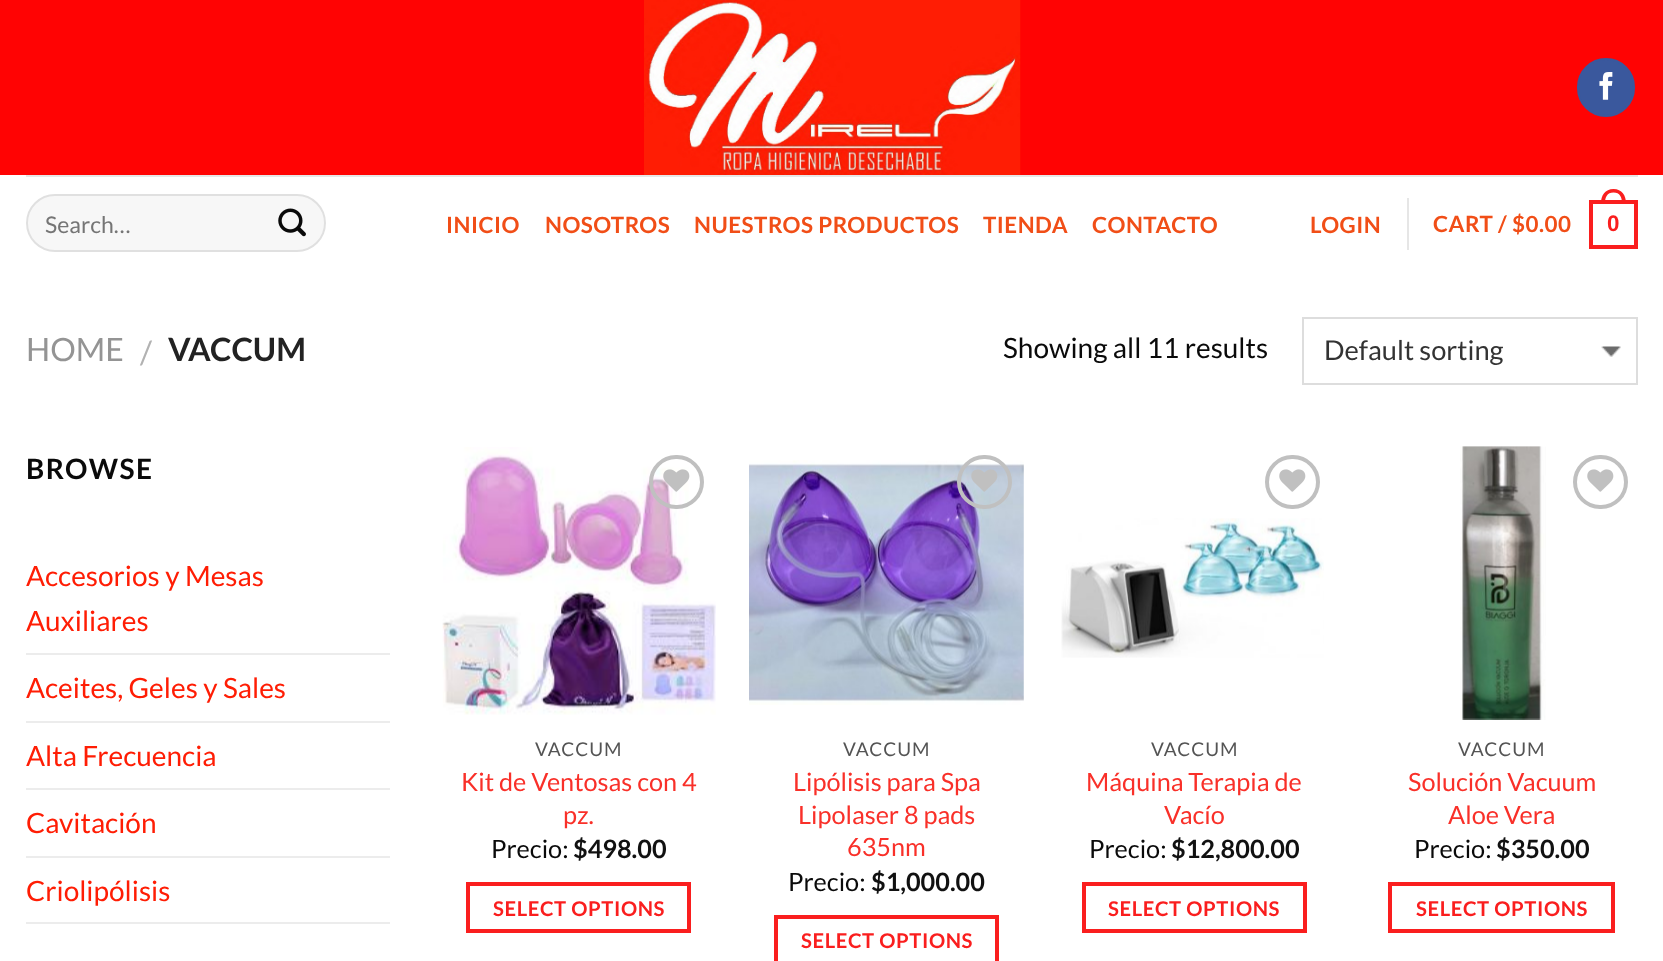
async function draw(canvas) {
	canvas.width = 1663;
	canvas.height = 961;
	const c = canvas.getContext('2d');
	c.miterLimit = 4;
	c.fontKerning = 'normal';
	async function loadImage(src) {
		const img = new Image();
		img.src = src;
		await img.decode();
		return img;
	}

	c.fillStyle = '#fff';
	c.fillRect(0, 0, 1663, 961);
	c.fillStyle = '#ff0303';
	c.fillRect(0, 0, 1663, 175);
	c.drawImage(await loadImage('img1.png'), 644, 0, 377, 175);
	c.fillStyle = '#3a589d';
	c.beginPath();
	c.roundRect(1578, 59, 56, 57, 28);
	c.fill();
	c.strokeStyle = '#3a589d';
	c.lineWidth = 2;
	c.stroke();
	c.drawImage(await loadImage('img2.png'), 1599, 72, 14, 28);
	c.fillStyle = '#e7e7e7';
	c.fillRect(26, 175, 1612, 2);
	c.fillStyle = '#f7f7f7';
	c.beginPath();
	c.roundRect(26, 194, 300, 58, 29);
	c.fill();
	c.beginPath();
	c.roundRect(27, 195, 298, 56, 28);
	c.strokeStyle = '#00000017';
	c.stroke();
	c.font = '23px Lato';
	c.fillStyle = '#757575';
	c.fillText('Search…', 45, 233);
	c.drawImage(await loadImage('img3.png'), 278, 208, 28, 29);
	c.letterSpacing = '0.5px';
	c.font = 'bold 22.4px Lato';
	c.fillStyle = '#f14e17';
	for (const [text, x, y] of [
		['INICIO', 446, 233],
		['NOSOTROS', 545, 233],
		['NUESTROS PRODUCTOS', 694, 233],
		['TIENDA', 983, 233],
		['CONTACTO', 1092, 233],
		['LOGIN', 1310, 233],
	]) {
		c.fillText(text, x, y);
	}
	c.fillStyle = '#e6e6e6';
	c.fillRect(1407, 198, 2, 52);
	c.fillStyle = '#f14e17';
	c.fillText('CART / $0.00', 1433, 232);
	c.strokeStyle = '#fa1e1e';
	c.lineWidth = 4;
	c.strokeRect(1591, 202, 45, 45);
	c.fillStyle = '#fa1e1e';
	c.beginPath();
	c.moveTo(1613.5, 189);
	c.bezierCurveTo(1622, 189, 1626, 195.5, 1626, 203);
	c.lineTo(1601, 203);
	c.bezierCurveTo(1601, 195.5, 1605, 189, 1613.5, 189);
	c.closePath();
	c.moveTo(1613.5, 192.5);
	c.bezierCurveTo(1620, 192.5, 1622, 197.5, 1622, 203);
	c.lineTo(1605, 203);
	c.bezierCurveTo(1605, 197.5, 1607, 192.5, 1613.5, 192.5);
	c.closePath();
	c.fill('evenodd');
	c.font = 'bold 22.4px Liberation Sans';
	c.fillText('0', 1607, 231);
	c.letterSpacing = '0px';
	c.font = '32px Lato';
	c.fillStyle = '#949494';
	c.fillText('HOME', 26, 361);
	c.fillStyle = '#b2b2b2';
	c.fillText('/', 140, 364);
	c.font = 'bold 32px Lato';
	c.fillStyle = '#222';
	c.fillText('VACCUM', 168, 361);
	c.font = '28px Lato';
	c.fillStyle = '#0a0a0a';
	c.fillText('Showing all 11 results', 1003, 358);
	c.drawImage(await loadImage('img4.png'), 1601, 346, 20, 11);
	c.strokeStyle = '#ddd';
	c.lineWidth = 2;
	c.strokeRect(1303, 318, 334, 66);
	c.font = '27.25px Lato';
	c.fillStyle = '#333';
	c.fillText('Default sorting', 1324, 360);
	c.letterSpacing = '1.5px';
	c.font = 'bold 28px Lato';
	c.fillStyle = '#0a0a0a';
	c.fillText('BROWSE', 26, 479);
	c.letterSpacing = '0px';
	c.font = '28px Lato';
	c.fillStyle = '#ff1d04';
	c.fillText('Accesorios y Mesas', 26, 586);
	c.fillText('Auxiliares', 26, 631);
	c.fillStyle = '#ececec';
	c.fillRect(26, 653, 364, 2);
	c.fillStyle = '#ff1d04';
	c.fillText('Aceites, Geles y Sales', 26, 698);
	c.fillStyle = '#ececec';
	c.fillRect(26, 721, 364, 2);
	c.fillStyle = '#ff1d04';
	c.fillText('Alta Frecuencia', 26, 766);
	c.fillStyle = '#ececec';
	c.fillRect(26, 788, 364, 2);
	c.fillStyle = '#ff1d04';
	c.fillText('Cavitación', 26, 833);
	c.fillStyle = '#ececec';
	c.fillRect(26, 856, 364, 2);
	c.fillStyle = '#ff1d04';
	c.fillText('Criolipólisis', 26, 901);
	c.fillStyle = '#ececec';
	c.fillRect(26, 922, 364, 2);
	c.drawImage(await loadImage('img5.png'), 442, 447, 274, 268);
	c.beginPath();
	c.roundRect(651, 457, 51, 50, 25);
	c.strokeStyle = '#c0c0c0';
	c.lineWidth = 4;
	c.stroke();
	c.drawImage(await loadImage('img6.png'), 663, 469, 27, 23);
	c.letterSpacing = '1px';
	c.font = '19px Lato';
	c.fillStyle = '#545454';
	c.fillText('VACCUM', 535, 756);
	c.letterSpacing = '0px';
	c.font = '25.25px Lato';
	c.fillStyle = '#f93029';
	c.fillText('Kit de Ventosas con 4', 461, 791);
	c.fillText('pz.', 563, 824);
	c.fillStyle = '#0a0a0a';
	c.fillText('Precio:', 491, 858);
	c.font = 'bold 25.25px Lato';
	c.fillStyle = '#111';
	c.fillText('$498.00', 573, 858);
	c.strokeStyle = '#fa1e1e';
	c.strokeRect(468, 884, 221, 47);
	c.letterSpacing = '0.6px';
	c.font = 'bold 20.25px Lato';
	c.fillStyle = '#fa1e1e';
	c.fillText('SELECT OPTIONS', 493, 916);
	c.drawImage(await loadImage('img8.png'), 749, 460, 275, 245);
	c.beginPath();
	c.roundRect(959, 457, 51, 50, 25);
	c.strokeStyle = '#c0c0c0';
	c.stroke();
	c.drawImage(await loadImage('img7.png'), 971, 469, 27, 23);
	c.letterSpacing = '1px';
	c.font = '19px Lato';
	c.fillStyle = '#545454';
	c.fillText('VACCUM', 843, 756);
	c.letterSpacing = '0px';
	c.font = '25.25px Lato';
	c.fillStyle = '#f93029';
	for (const [text, x, y] of [
		['Lipólisis para Spa', 793, 791],
		['Lipolaser 8 pads', 798, 824],
		['635nm', 847, 856],
	]) {
		c.fillText(text, x, y);
	}
	c.fillStyle = '#0a0a0a';
	c.fillText('Precio:', 788, 891);
	c.font = 'bold 25.25px Lato';
	c.fillStyle = '#111';
	c.fillText('$1,000.00', 871, 891);
	c.strokeStyle = '#fa1e1e';
	c.strokeRect(776, 917, 221, 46);
	c.letterSpacing = '0.6px';
	c.font = 'bold 20.25px Lato';
	c.fillStyle = '#fa1e1e';
	c.fillText('SELECT OPTIONS', 801, 948);
	c.beginPath();
	c.roundRect(1267, 457, 51, 50, 25);
	c.strokeStyle = '#c0c0c0';
	c.stroke();
	c.drawImage(await loadImage('img9.png'), 1279, 469, 27, 23);
	c.drawImage(await loadImage('img10.png'), 1061, 518, 263, 140);
	c.letterSpacing = '1px';
	c.font = '19px Lato';
	c.fillStyle = '#545454';
	c.fillText('VACCUM', 1151, 756);
	c.letterSpacing = '0px';
	c.font = '25.25px Lato';
	c.fillStyle = '#f93029';
	c.fillText('Máquina Terapia de', 1086, 791);
	c.fillText('Vacío', 1164, 824);
	c.fillStyle = '#0a0a0a';
	c.fillText('Precio:', 1089, 858);
	c.font = 'bold 25.25px Lato';
	c.fillStyle = '#111';
	c.fillText('$12,800.00', 1171, 858);
	c.strokeStyle = '#fa1e1e';
	c.strokeRect(1084, 884, 221, 47);
	c.letterSpacing = '0.6px';
	c.font = 'bold 20.25px Lato';
	c.fillStyle = '#fa1e1e';
	c.fillText('SELECT OPTIONS', 1108, 916);
	c.drawImage(await loadImage('img11.png'), 1460, 446, 86, 274);
	c.beginPath();
	c.roundRect(1575, 457, 51, 50, 25);
	c.strokeStyle = '#c0c0c0';
	c.stroke();
	c.drawImage(await loadImage('img9.png'), 1587, 469, 27, 23);
	c.letterSpacing = '1px';
	c.font = '19px Lato';
	c.fillStyle = '#545454';
	c.fillText('VACCUM', 1458, 756);
	c.letterSpacing = '0px';
	c.font = '25.25px Lato';
	c.fillStyle = '#f93029';
	c.fillText('Solución Vacuum', 1408, 791);
	c.fillText('Aloe Vera', 1448, 824);
	c.fillStyle = '#0a0a0a';
	c.fillText('Precio:', 1414, 858);
	c.font = 'bold 25.25px Lato';
	c.fillStyle = '#111';
	c.fillText('$350.00', 1496, 858);
	c.strokeStyle = '#fa1e1e';
	c.strokeRect(1390, 884, 223, 47);
	c.letterSpacing = '0.6px';
	c.font = 'bold 20.25px Lato';
	c.fillStyle = '#fa1e1e';
	c.fillText('SELECT OPTIONS', 1416, 916);
}

draw(document.querySelector('canvas'));
